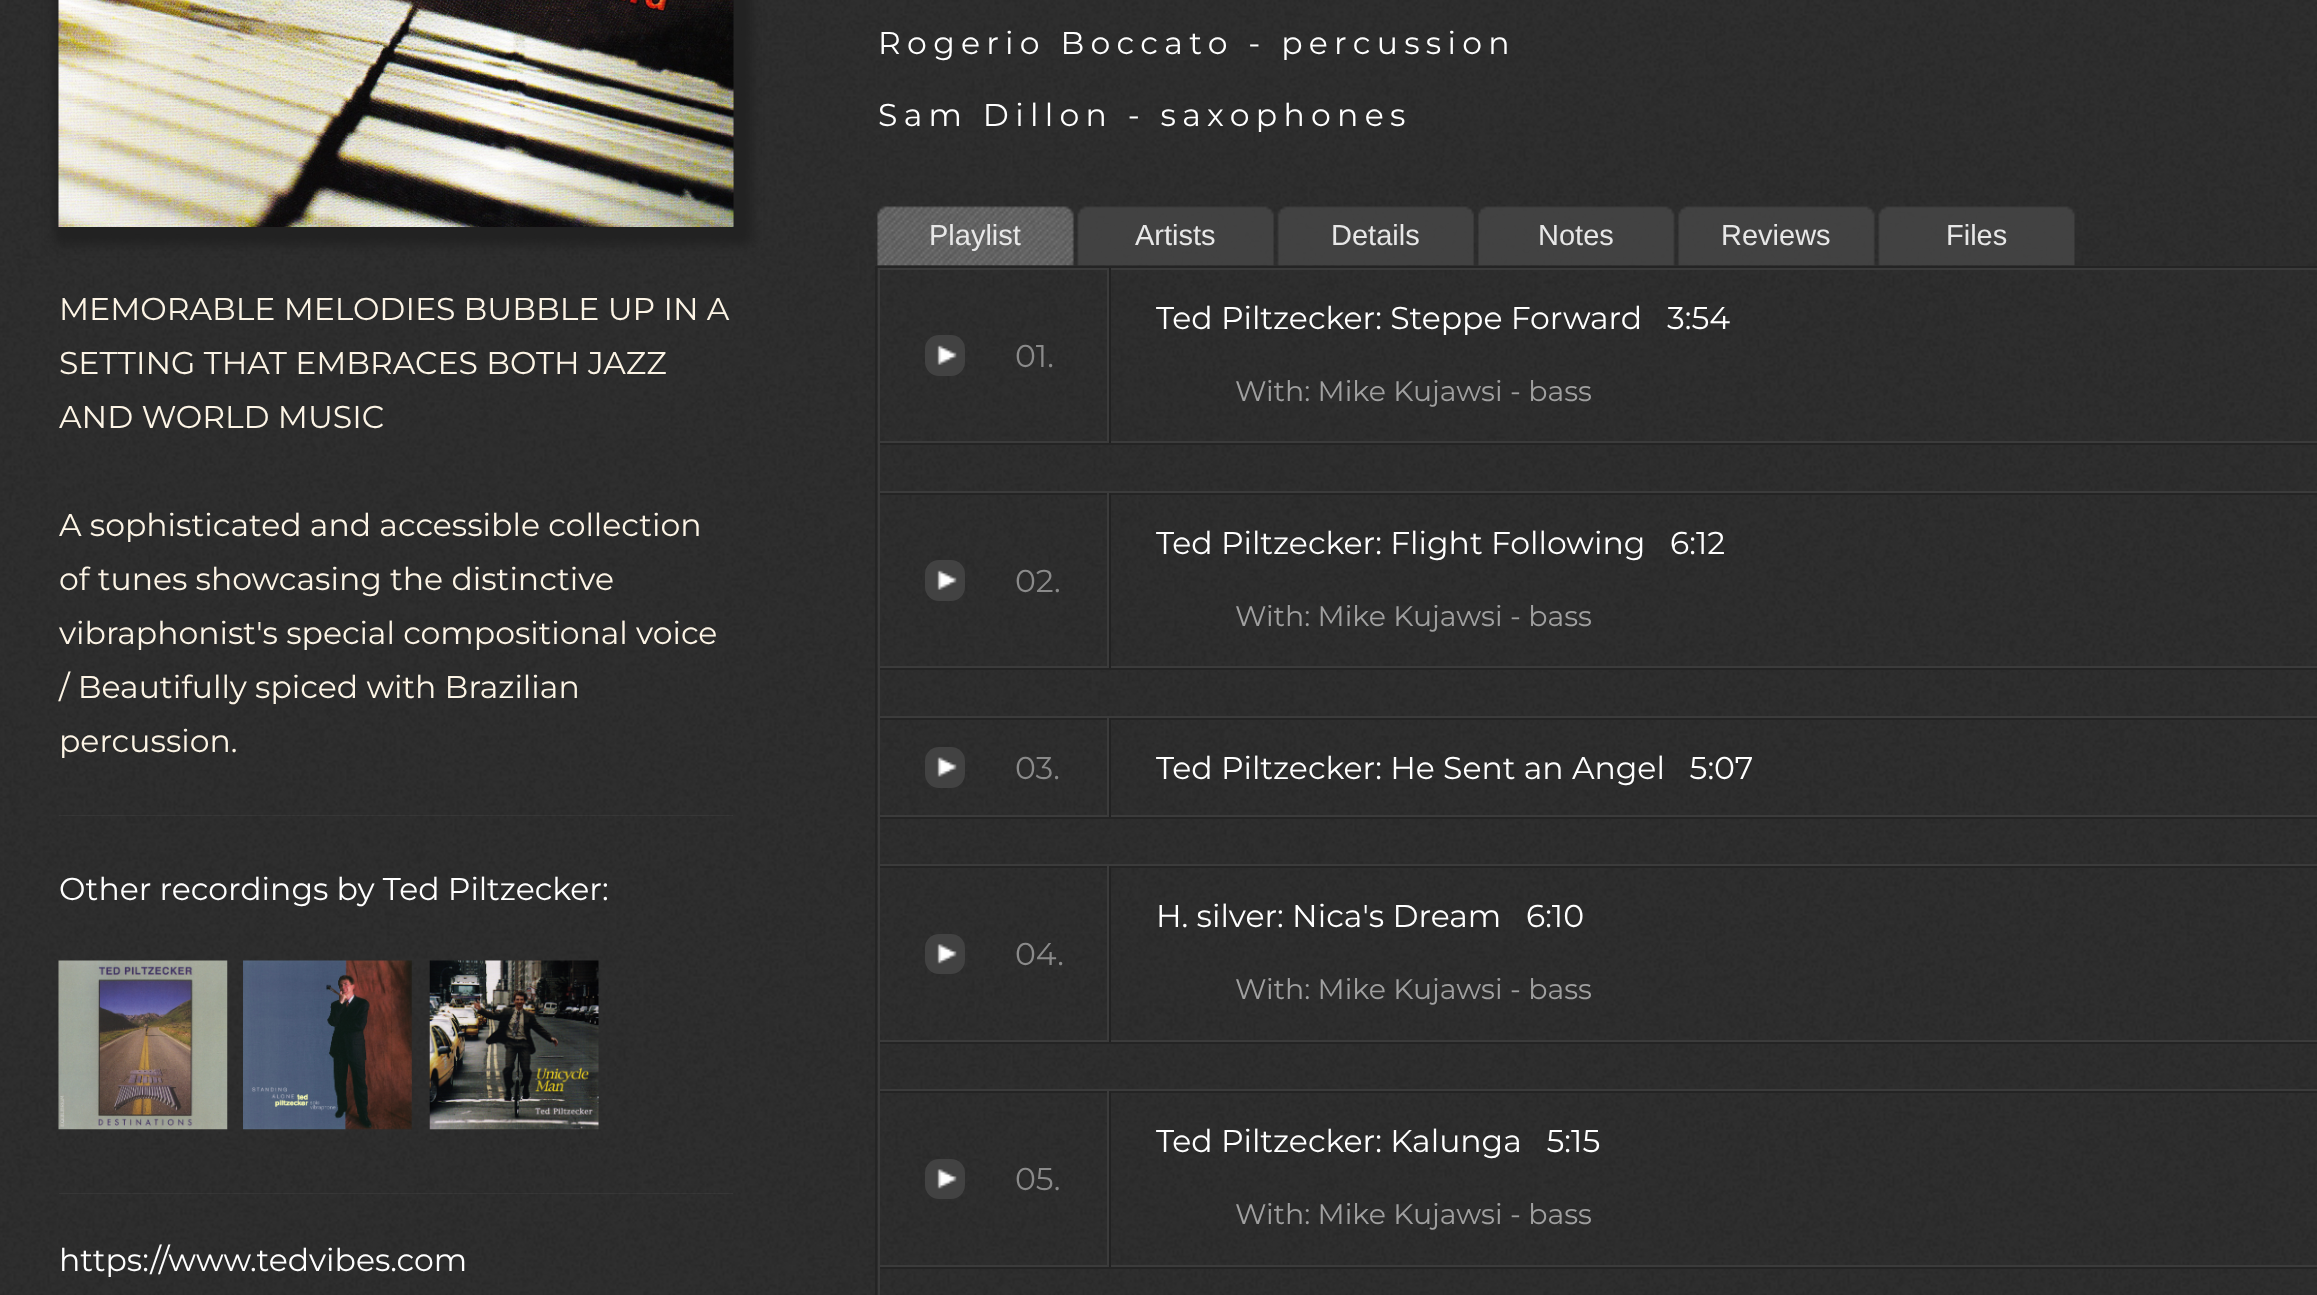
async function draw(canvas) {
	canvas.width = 2317;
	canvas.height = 1295;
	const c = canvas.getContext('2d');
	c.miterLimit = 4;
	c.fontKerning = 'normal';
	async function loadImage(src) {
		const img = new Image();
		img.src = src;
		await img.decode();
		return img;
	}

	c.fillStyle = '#2a2a2a';
	c.fillRect(0, 0, 2317, 1295);
	c.drawImage(await loadImage('img1.png'), 0, 0, 2317, 1295);
	c.fillStyle = '#222';
	c.filter = 'blur(5.5px)';
	c.beginPath();
	c.rect(54, -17, 698, 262);
	c.fill();
	c.filter = 'none';
	c.drawImage(await loadImage('img2.png'), 58, 0, 676, 227);
	c.font = '100 31.5px Montserrat';
	c.fillStyle = '#fdf5e6';
	for (const [text, x, y] of [
		['MEMORABLE MELODIES BUBBLE UP IN A', 59, 320],
		['SETTING THAT EMBRACES BOTH JAZZ', 59, 374],
		['AND WORLD MUSIC', 59, 428],
		['A sophisticated and accessible collection', 59, 536],
		['of tunes showcasing the distinctive', 59, 590],
		['vibraphonist\'s special compositional voice', 59, 644],
		['/ Beautifully spiced with Brazilian', 59, 698],
		['percussion.', 59, 752],
	]) {
		c.fillText(text, x, y);
	}
	c.drawImage(await loadImage('img3.png'), 59, 815, 674, 1);
	c.fillStyle = '#fff';
	c.fillText('Other recordings by Ted Piltzecker:', 59, 900);
	c.drawImage(await loadImage('img4.png'), 58, 960, 170, 170);
	c.drawImage(await loadImage('img5.png'), 243, 960, 169, 170);
	c.drawImage(await loadImage('img6.png'), 429, 960, 170, 170);
	c.drawImage(await loadImage('img7.png'), 59, 1193, 674, 1);
	c.fillText('https://www.tedvibes.com', 59, 1271);
	c.letterSpacing = '6.3px';
	c.fillText('Rogerio Boccato - percussion', 878, 54);
	c.fillText('Sam Dillon - saxophones', 878, 126);
	c.drawImage(await loadImage('img8.png'), 877, 206, 197, 60);
	c.letterSpacing = '0px';
	c.font = '29px Liberation Sans';
	c.fillStyle = '#e7e7e7';
	c.fillText('Playlist', 929, 245);
	c.drawImage(await loadImage('img9.png'), 1077, 206, 197, 60);
	c.fillText('Artists', 1135, 245);
	c.drawImage(await loadImage('img10.png'), 1277, 206, 197, 60);
	c.fillText('Details', 1331, 245);
	c.drawImage(await loadImage('img11.png'), 1478, 206, 197, 60);
	c.fillText('Notes', 1538, 245);
	c.drawImage(await loadImage('img12.png'), 1678, 206, 197, 60);
	c.fillText('Reviews', 1721, 245);
	c.drawImage(await loadImage('img13.png'), 1878, 206, 197, 60);
	c.fillText('Files', 1946, 245);
	c.strokeStyle = '#242424';
	c.lineWidth = 2;
	c.strokeRect(876, 267, 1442, 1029);
	for (const [x, y, w, h, color] of [
		[878, 268, 1439, 2, '#3b3b3b'],
		[878, 441, 137, 2, '#3b3b3b'],
		[878, 268, 2, 175, '#3b3b3b'],
	]) {
		c.fillStyle = color;
		c.fillRect(x, y, w, h);
	}
	c.fillStyle = '#424242';
	c.beginPath();
	c.roundRect(925, 335, 40, 41, 14);
	c.fill();
	c.drawImage(await loadImage('img14.png'), 937, 345, 20, 20);
	c.fillStyle = '#3b3b3b';
	c.fillRect(1107, 268, 2, 175);
	c.fillRect(1015, 441, 1302, 2);
	c.font = '100 31.5px Montserrat';
	c.fillStyle = '#8a8a8a';
	c.fillText('01.', 1015, 367);
	c.fillStyle = '#222';
	c.fillRect(1109, 268, 2, 175);
	c.fillStyle = '#fff';
	c.fillText('Ted Piltzecker: Steppe Forward   3:54', 1156, 329);
	c.font = '100 28.4px Montserrat';
	c.fillStyle = '#a0a0a0';
	c.fillText('With: Mike Kujawsi - bass', 1235, 401);
	for (const [x, y, w, h, color] of [
		[878, 443, 1439, 2, '#242424'],
		[878, 491, 1439, 2, '#3b3b3b'],
		[878, 443, 2, 50, '#3b3b3b'],
		[878, 493, 1439, 2, '#242424'],
		[878, 666, 137, 2, '#3b3b3b'],
		[878, 493, 2, 175, '#3b3b3b'],
	]) {
		c.fillStyle = color;
		c.fillRect(x, y, w, h);
	}
	c.fillStyle = '#424242';
	c.beginPath();
	c.roundRect(925, 560, 40, 41, 14);
	c.fill();
	c.drawImage(await loadImage('img14.png'), 937, 570, 20, 20);
	c.fillStyle = '#3b3b3b';
	c.fillRect(1107, 493, 2, 175);
	c.fillRect(1015, 666, 1302, 2);
	c.font = '100 31.5px Montserrat';
	c.fillStyle = '#8a8a8a';
	c.fillText('02.', 1015, 592);
	c.fillStyle = '#222';
	c.fillRect(1109, 493, 2, 175);
	c.fillStyle = '#fff';
	c.fillText('Ted Piltzecker: Flight Following   6:12', 1156, 554);
	c.font = '100 28.4px Montserrat';
	c.fillStyle = '#a0a0a0';
	c.fillText('With: Mike Kujawsi - bass', 1235, 626);
	for (const [x, y, w, h, color] of [
		[878, 668, 1439, 2, '#242424'],
		[878, 716, 1439, 2, '#3b3b3b'],
		[878, 668, 2, 50, '#3b3b3b'],
		[878, 718, 1439, 2, '#242424'],
		[878, 815, 137, 2, '#3b3b3b'],
		[878, 718, 2, 99, '#3b3b3b'],
	]) {
		c.fillStyle = color;
		c.fillRect(x, y, w, h);
	}
	c.fillStyle = '#424242';
	c.beginPath();
	c.roundRect(925, 747, 40, 41, 14);
	c.fill();
	c.drawImage(await loadImage('img15.png'), 937, 757, 20, 20);
	c.fillStyle = '#3b3b3b';
	c.fillRect(1107, 718, 2, 99);
	c.fillRect(1015, 815, 1302, 2);
	c.font = '100 31.5px Montserrat';
	c.fillStyle = '#8a8a8a';
	c.fillText('03.', 1015, 779);
	c.fillStyle = '#222';
	c.fillRect(1109, 718, 2, 99);
	c.fillStyle = '#fff';
	c.fillText('Ted Piltzecker: He Sent an Angel   5:07', 1156, 779);
	for (const [x, y, w, h, color] of [
		[878, 817, 1439, 2, '#242424'],
		[878, 864, 1439, 2, '#3b3b3b'],
		[878, 817, 2, 49, '#3b3b3b'],
		[878, 866, 1439, 2, '#242424'],
		[878, 1040, 137, 2, '#3b3b3b'],
		[878, 866, 2, 176, '#3b3b3b'],
	]) {
		c.fillStyle = color;
		c.fillRect(x, y, w, h);
	}
	c.fillStyle = '#424242';
	c.beginPath();
	c.roundRect(925, 934, 40, 40, 14);
	c.fill();
	c.drawImage(await loadImage('img16.png'), 937, 944, 20, 20);
	c.fillStyle = '#3b3b3b';
	c.fillRect(1107, 866, 2, 176);
	c.fillRect(1015, 1040, 1302, 2);
	c.fillStyle = '#8a8a8a';
	c.fillText('04.', 1015, 965);
	c.fillStyle = '#222';
	c.fillRect(1109, 866, 2, 176);
	c.fillStyle = '#fff';
	c.fillText('H. silver: Nica\'s Dream   6:10', 1156, 927);
	c.font = '100 28.4px Montserrat';
	c.fillStyle = '#a0a0a0';
	c.fillText('With: Mike Kujawsi - bass', 1235, 999);
	for (const [x, y, w, h, color] of [
		[878, 1042, 1439, 2, '#242424'],
		[878, 1089, 1439, 2, '#3b3b3b'],
		[878, 1042, 2, 49, '#3b3b3b'],
		[878, 1091, 1439, 2, '#242424'],
		[878, 1265, 137, 2, '#3b3b3b'],
		[878, 1091, 2, 176, '#3b3b3b'],
	]) {
		c.fillStyle = color;
		c.fillRect(x, y, w, h);
	}
	c.fillStyle = '#424242';
	c.beginPath();
	c.roundRect(925, 1159, 40, 40, 14);
	c.fill();
	c.drawImage(await loadImage('img16.png'), 937, 1169, 20, 20);
	c.fillStyle = '#3b3b3b';
	c.fillRect(1107, 1091, 2, 176);
	c.fillRect(1015, 1265, 1302, 2);
	c.font = '100 31.5px Montserrat';
	c.fillStyle = '#8a8a8a';
	c.fillText('05.', 1015, 1190);
	c.fillStyle = '#222';
	c.fillRect(1109, 1091, 2, 176);
	c.fillStyle = '#fff';
	c.fillText('Ted Piltzecker: Kalunga   5:15', 1156, 1152);
	c.font = '100 28.4px Montserrat';
	c.fillStyle = '#a0a0a0';
	c.fillText('With: Mike Kujawsi - bass', 1235, 1224);
	c.fillStyle = '#242424';
	c.fillRect(878, 1267, 1439, 2);
	c.fillStyle = '#3b3b3b';
	c.fillRect(878, 1267, 2, 28);
}

draw(document.querySelector('canvas'));
